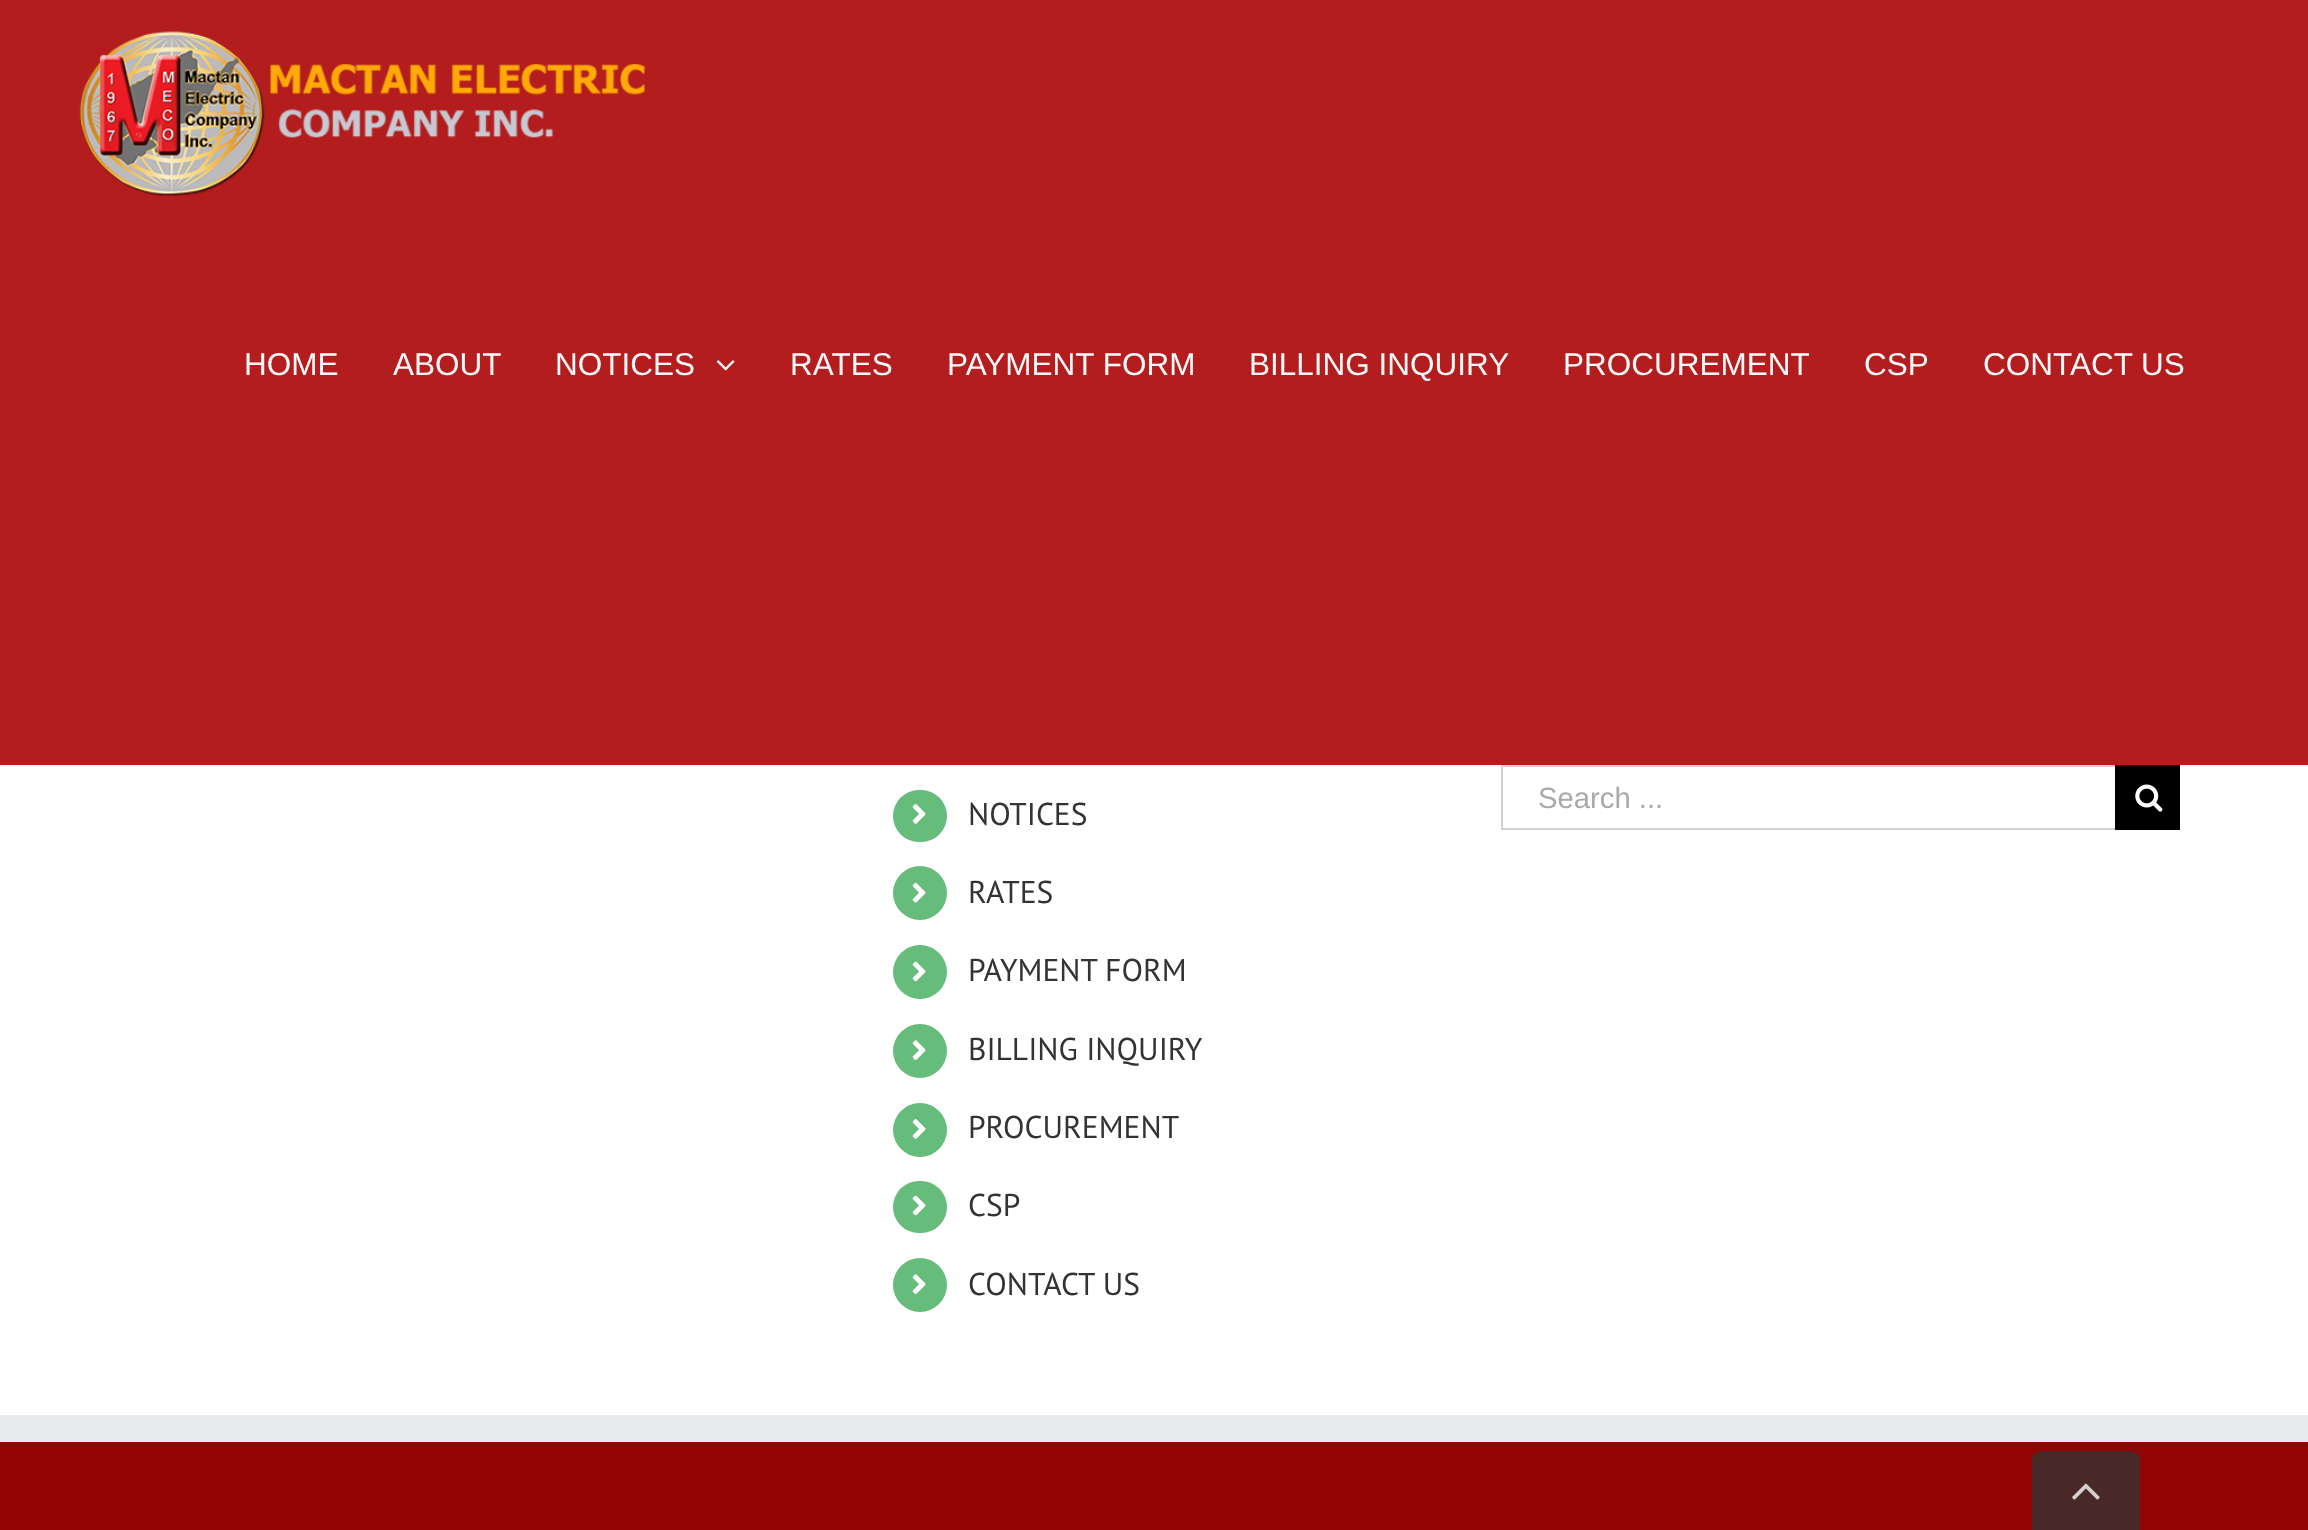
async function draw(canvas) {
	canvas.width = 2308;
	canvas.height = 1530;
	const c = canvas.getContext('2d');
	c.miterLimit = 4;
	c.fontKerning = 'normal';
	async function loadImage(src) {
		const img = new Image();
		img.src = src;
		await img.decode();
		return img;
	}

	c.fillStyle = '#fff';
	c.fillRect(0, 0, 2308, 1530);
	c.fillStyle = '#b31d1e';
	c.fillRect(0, 0, 2308, 765);
	c.drawImage(await loadImage('img1.png'), 79, 31, 566, 165);
	c.font = '31.5px Liberation Sans';
	c.fillStyle = '#f9f9f9';
	for (const [text, x, y] of [
		['HOME', 244, 375],
		['ABOUT', 393, 375],
		['NOTICES', 555, 375],
	]) {
		c.fillText(text, x, y);
	}
	c.drawImage(await loadImage('img2.png'), 716, 360, 19, 11);
	for (const [text, x, y] of [
		['RATES', 790, 375],
		['PAYMENT FORM', 947, 375],
		['BILLING INQUIRY', 1249, 375],
		['PROCUREMENT', 1563, 375],
		['CSP', 1864, 375],
		['CONTACT US', 1983, 375],
	]) {
		c.fillText(text, x, y);
	}
	for (const [x, y, w, h, color] of [
		[1501, 765, 614, 2, '#d2d2d2'],
		[1501, 828, 614, 2, '#d2d2d2'],
		[1501, 765, 2, 65, '#d2d2d2'],
	]) {
		c.fillStyle = color;
		c.fillRect(x, y, w, h);
	}
	c.font = '29.25px Liberation Sans';
	c.fillStyle = '#aaa9a9';
	c.fillText('Search ...', 1538, 808);
	c.fillStyle = '#000';
	c.fillRect(2115, 765, 65, 65);
	c.drawImage(await loadImage('img3.png'), 2135, 784, 28, 28);
	c.fillStyle = '#65bc7b';
	c.beginPath();
	c.roundRect(893, 790, 54, 52, 26);
	c.fill();
	c.drawImage(await loadImage('img4.png'), 912, 804, 14, 20);
	c.font = '31.5px PT Sans';
	c.fillStyle = '#333';
	c.fillText('NOTICES', 968, 825);
	c.fillStyle = '#65bc7b';
	c.beginPath();
	c.arc(920, 893, 27, 0, 2 * Math.PI);
	c.fill();
	c.drawImage(await loadImage('img5.png'), 912, 882, 14, 21);
	c.fillStyle = '#333';
	c.fillText('RATES', 968, 903);
	c.fillStyle = '#65bc7b';
	c.beginPath();
	c.arc(920, 972, 27, 0, 2 * Math.PI);
	c.fill();
	c.drawImage(await loadImage('img6.png'), 912, 961, 14, 21);
	c.fillStyle = '#333';
	c.fillText('PAYMENT FORM', 968, 981);
	c.fillStyle = '#65bc7b';
	c.beginPath();
	c.arc(920, 1051, 27, 0, 2 * Math.PI);
	c.fill();
	c.drawImage(await loadImage('img7.png'), 912, 1040, 14, 20);
	c.fillStyle = '#333';
	c.fillText('BILLING INQUIRY', 968, 1060);
	c.fillStyle = '#65bc7b';
	c.beginPath();
	c.arc(920, 1130, 27, 0, 2 * Math.PI);
	c.fill();
	c.drawImage(await loadImage('img4.png'), 912, 1119, 14, 20);
	c.fillStyle = '#333';
	c.fillText('PROCUREMENT', 968, 1138);
	c.fillStyle = '#65bc7b';
	c.beginPath();
	c.roundRect(893, 1181, 54, 52, 26);
	c.fill();
	c.drawImage(await loadImage('img6.png'), 912, 1195, 14, 21);
	c.fillStyle = '#333';
	c.fillText('CSP', 968, 1216);
	c.fillStyle = '#65bc7b';
	c.beginPath();
	c.arc(920, 1285, 27, 0, 2 * Math.PI);
	c.fill();
	c.drawImage(await loadImage('img7.png'), 912, 1274, 14, 20);
	c.fillStyle = '#333';
	c.fillText('CONTACT US', 968, 1295);
	c.fillStyle = '#920403';
	c.fillRect(0, 1442, 2308, 88);
	c.fillStyle = '#e9eaee';
	c.fillRect(0, 1415, 2308, 27);
	c.fillStyle = '#482928';
	c.beginPath();
	c.roundRect(2032, 1451, 108, 79, [9, 9, 0, 0]);
	c.fill();
	c.drawImage(await loadImage('img8.png'), 2072, 1483, 28, 17);
}

draw(document.querySelector('canvas'));
